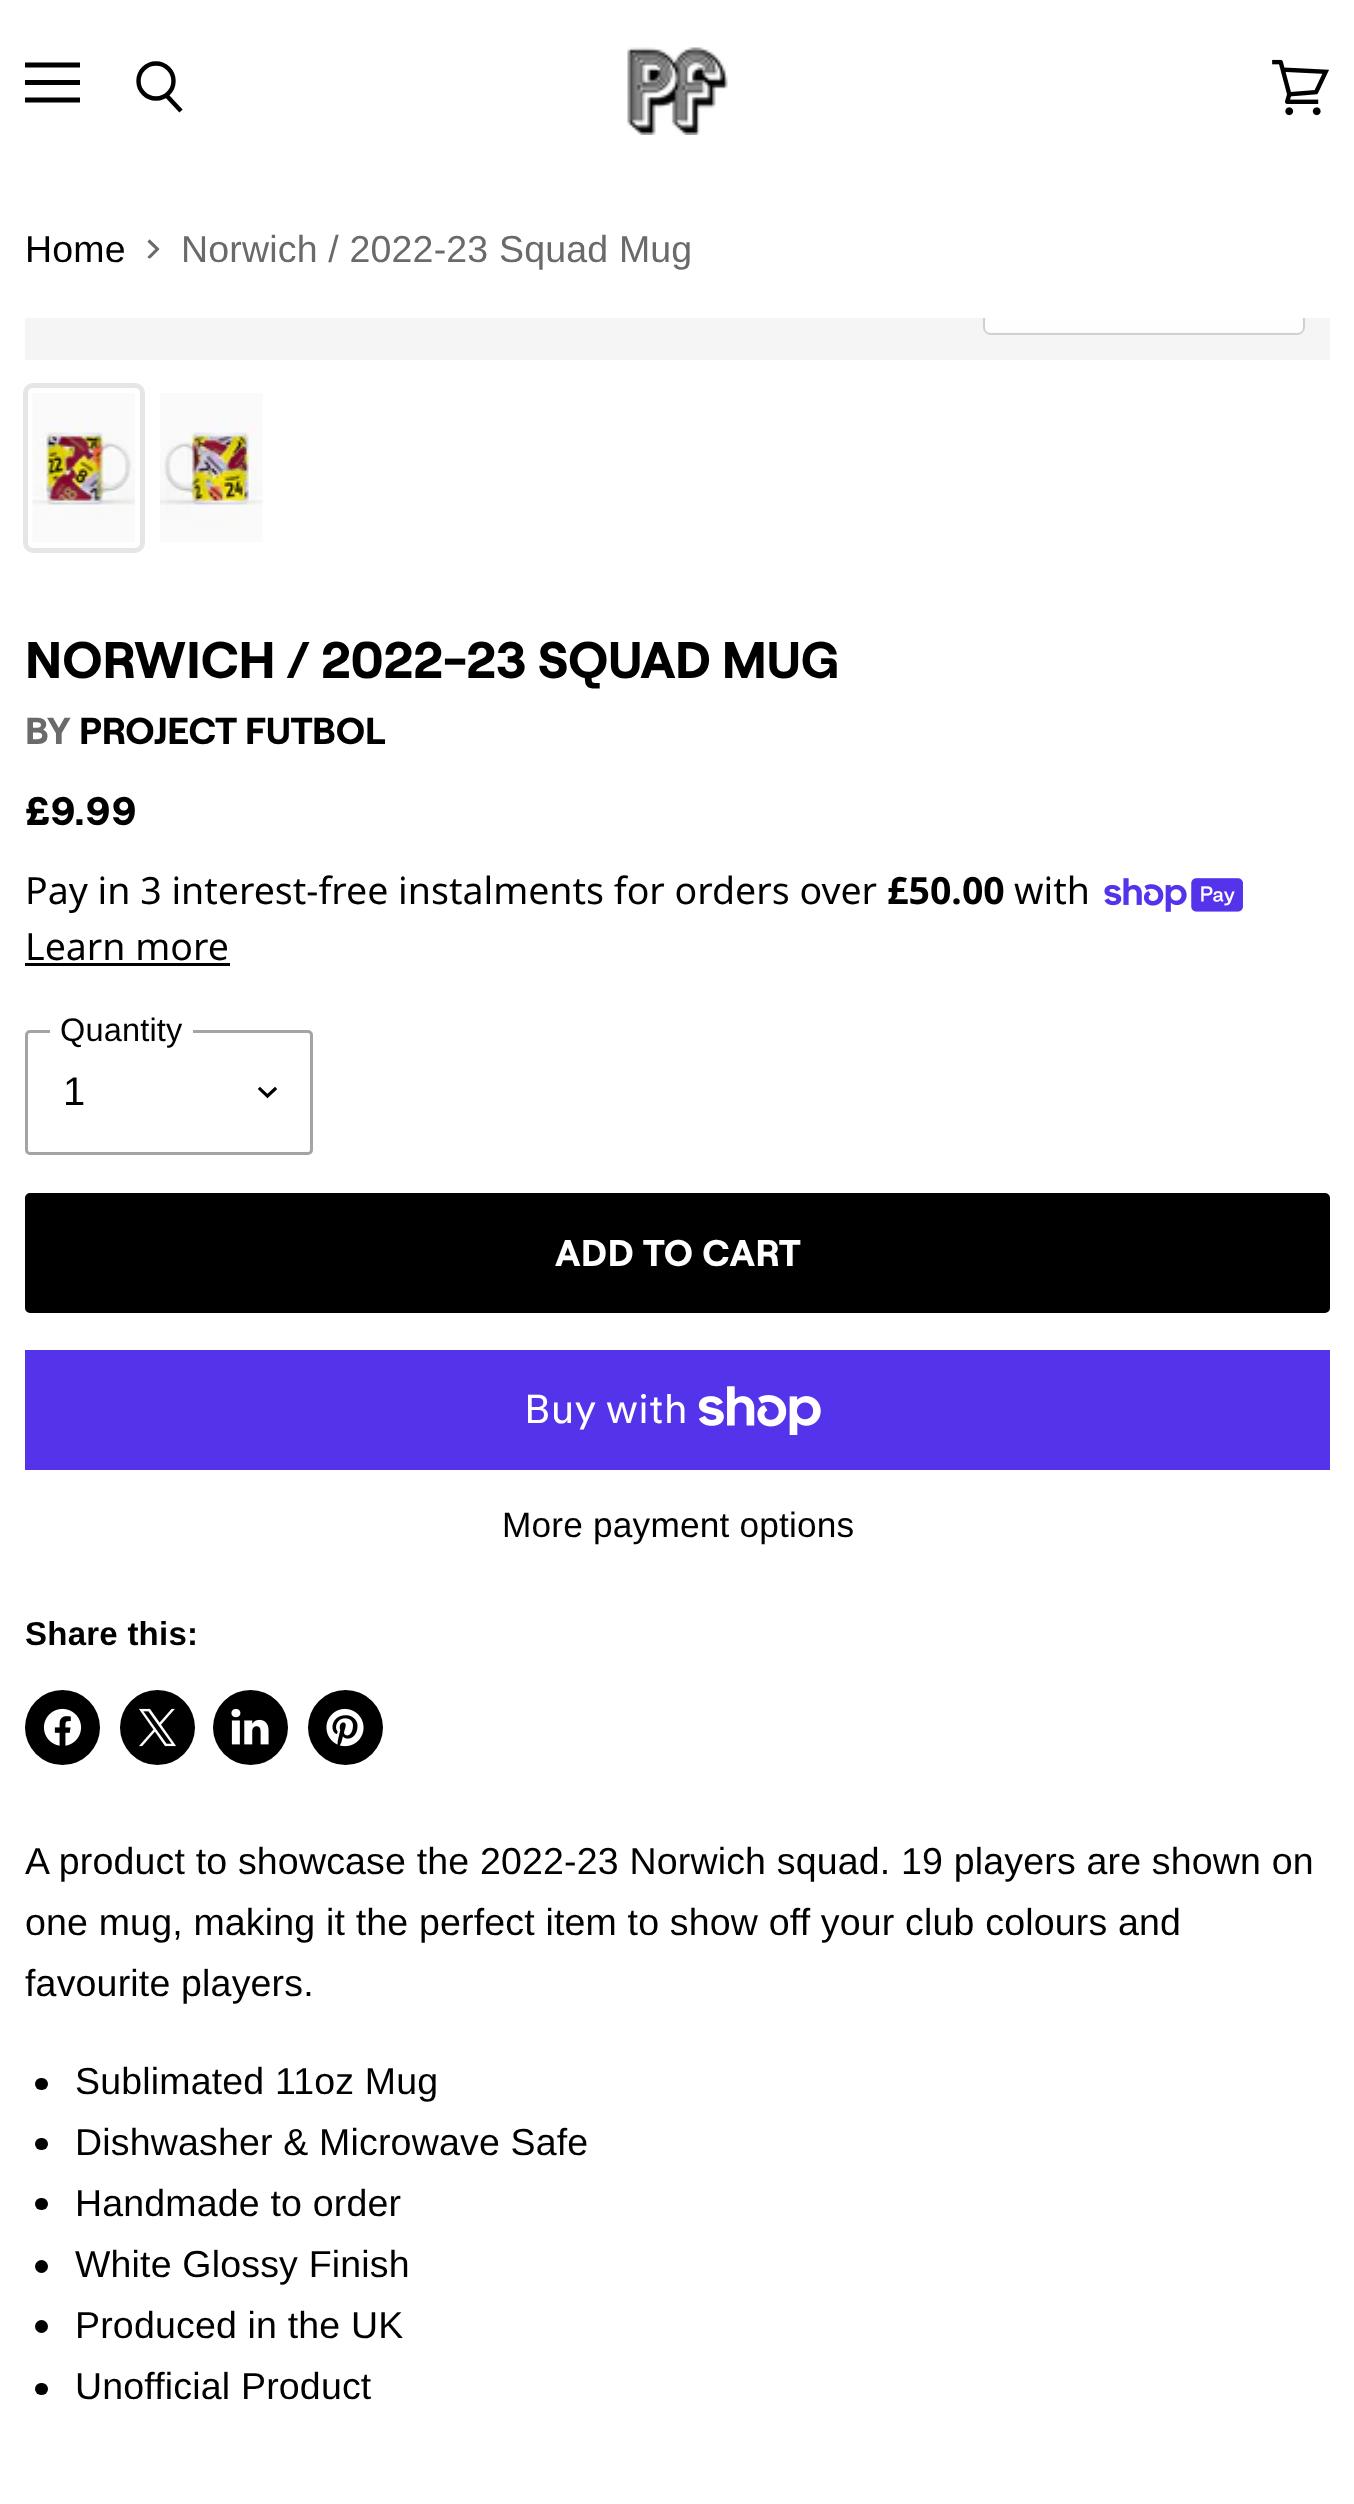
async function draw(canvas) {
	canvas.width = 1354;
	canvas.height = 2504;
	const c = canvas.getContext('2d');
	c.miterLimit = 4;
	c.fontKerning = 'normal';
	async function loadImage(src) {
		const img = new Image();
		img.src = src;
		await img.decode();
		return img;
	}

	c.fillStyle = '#fff';
	c.fillRect(0, 0, 1354, 2504);
	c.drawImage(await loadImage('img1.png'), 627, 47, 101, 88);
	c.beginPath();
	c.moveTo(77.5, 65);
	c.lineTo(27.5, 65);
	c.strokeStyle = '#000';
	c.lineWidth = 5;
	c.lineCap = 'square';
	c.lineJoin = 'round';
	c.stroke();
	c.fillStyle = '#000';
	c.fillRect(25, 80, 55, 5);
	c.beginPath();
	c.moveTo(77.5, 100);
	c.lineTo(27.5, 100);
	c.stroke();
	c.beginPath();
	c.moveTo(181, 111);
	c.lineTo(166.5, 95.5);
	c.lineWidth = 4.4;
	c.lineCap = 'butt';
	c.lineJoin = 'miter';
	c.stroke();
	c.beginPath();
	c.arc(156, 81, 17.5, 0, 2 * Math.PI);
	c.stroke();
	c.drawImage(await loadImage('img2.png'), 1272, 59, 57, 57);
	c.letterSpacing = '0.18px';
	c.font = '37.5px Liberation Sans';
	c.fillText('Home', 25, 262);
	c.save();
	c.beginPath();
	c.moveTo(147, 258.5);
	c.lineTo(147, 238.5);
	c.lineTo(159.5, 238.5);
	c.lineTo(159.5, 258.5);
	c.closePath();
	c.clip();
	c.beginPath();
	c.moveTo(148.5, 258);
	c.lineTo(157.5, 249);
	c.lineTo(148.5, 240.5);
	c.strokeStyle = '#6a6a6a';
	c.lineWidth = 3.1;
	c.stroke();
	c.restore();
	c.fillStyle = '#6a6a6a';
	c.fillText('Norwich / 2022-23 Squad Mug', 181, 262);
	c.fillStyle = '#f5f5f5';
	c.fillRect(25, 318, 1305, 42);
	c.save();
	c.beginPath();
	c.rect(25, 318, 1305, 42);
	c.clip();
	c.beginPath();
	c.roundRect(984.5, 264.5, 319, 69, 6.5);
	c.strokeStyle = '#d0d0d0';
	c.lineWidth = 3;
	c.stroke();
	c.restore();
	c.fillStyle = '#ffffffe6';
	c.beginPath();
	c.roundRect(985, 318, 318, 15, [0, 0, 5, 5]);
	c.fill();
	c.beginPath();
	c.roundRect(25.5, 385.5, 117, 165, 7.5);
	c.strokeStyle = '#e6e6e6';
	c.lineWidth = 5;
	c.stroke();
	c.drawImage(await loadImage('img3.png'), 32, 393, 103, 149);
	c.drawImage(await loadImage('img4.png'), 160, 393, 103, 149);
	c.letterSpacing = '0px';
	c.font = 'bold 51.5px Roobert';
	c.fillStyle = '#000';
	c.fillText('NORWICH / 2022-23 SQUAD MUG', 25, 678);
	c.font = 'bold 37.5px Roobert';
	c.fillStyle = '#6a6a6a';
	c.fillText('BY', 25, 744);
	c.fillStyle = '#000';
	c.fillText('PROJECT FUTBOL', 79, 744);
	c.font = 'bold 40px Roobert';
	c.fillText('£9.99', 25, 825);
	c.font = '37.5px Noto Sans';
	c.fillText('Pay in 3 interest-free instalments for orders over', 25, 904);
	c.font = 'bold 37.5px Noto Sans';
	c.fillText('£50.00', 887, 904);
	c.font = '37.5px Noto Sans';
	c.fillText('with', 1014, 904);
	c.drawImage(await loadImage('img5.png'), 1104, 878, 139, 34);
	c.fillText('Learn more', 25, 960);
	c.fillRect(25, 963, 205, 3);
	c.beginPath();
	c.roundRect(26.5, 1031.5, 285, 122, 3.5);
	c.strokeStyle = '#a1a6a4';
	c.lineWidth = 3;
	c.stroke();
	c.fillStyle = '#fff';
	c.fillRect(50, 1030, 143, 3);
	c.letterSpacing = '0.18px';
	c.font = '32.5px Liberation Sans';
	c.fillStyle = '#000';
	c.fillText('Quantity', 60, 1041);
	c.letterSpacing = '0px';
	c.font = '40px Liberation Sans';
	c.fillText('1', 63, 1105);
	c.beginPath();
	c.moveTo(267.5, 1096);
	c.lineTo(275, 1089);
	c.moveTo(267.5, 1096);
	c.lineTo(260, 1089);
	c.strokeStyle = '#000';
	c.lineWidth = 3.1;
	c.lineCap = 'square';
	c.stroke();
	c.beginPath();
	c.roundRect(26.5, 1194.5, 1302, 117, 3.5);
	c.fill();
	c.lineWidth = 3;
	c.stroke();
	c.letterSpacing = '0.75px';
	c.font = 'bold 37.25px Roobert';
	c.fillStyle = '#fff';
	c.fillText('ADD TO CART', 555, 1266);
	c.fillStyle = '#5433eb';
	c.fillRect(25, 1350, 1305, 120);
	c.letterSpacing = '0.18px';
	c.font = '40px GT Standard';
	c.fillStyle = '#fff';
	c.fillText('Buy with', 524, 1423);
	c.drawImage(await loadImage('img6.png'), 698, 1386, 123, 49);
	c.font = '35.25px Liberation Sans';
	c.fillStyle = '#000';
	c.fillText('More payment options', 502, 1537);
	c.letterSpacing = '0.25px';
	c.font = 'bold 33px Liberation Sans';
	c.fillText('Share this:', 25, 1645);
	c.beginPath();
	c.arc(62.5, 1727.5, 37.5, 0, 2 * Math.PI);
	c.fill();
	c.drawImage(await loadImage('img7.png'), 43, 1708, 39, 38);
	c.beginPath();
	c.arc(157.5, 1727.5, 37.5, 0, 2 * Math.PI);
	c.fill();
	c.drawImage(await loadImage('img8.png'), 139, 1708, 37, 39);
	c.beginPath();
	c.arc(250.5, 1727.5, 37.5, 0, 2 * Math.PI);
	c.fill();
	c.drawImage(await loadImage('img9.png'), 231, 1708, 38, 37);
	c.beginPath();
	c.arc(345.5, 1727.5, 37.5, 0, 2 * Math.PI);
	c.fill();
	c.drawImage(await loadImage('img10.png'), 326, 1708, 38, 39);
	c.letterSpacing = '0.18px';
	c.font = '37.5px Liberation Sans';
	for (const [text, x, y] of [
		['A product to showcase the 2022-23 Norwich squad. 19 players are shown on', 25, 1874],
		['one mug, making it the perfect item to show off your club colours and', 25, 1935],
		['favourite players.', 25, 1996],
	]) {
		c.fillText(text, x, y);
	}
	c.beginPath();
	c.roundRect(35, 2078, 13, 12, 6);
	c.fill();
	c.fillText('Sublimated 11oz Mug', 75, 2094);
	c.beginPath();
	c.roundRect(35, 2138, 13, 12, 6);
	c.fill();
	c.fillText('Dishwasher & Microwave Safe', 75, 2155);
	c.beginPath();
	c.roundRect(35, 2198, 13, 12, 6);
	c.fill();
	c.fillText('Handmade to order', 75, 2216);
	c.beginPath();
	c.arc(41.5, 2266.5, 6.5, 0, 2 * Math.PI);
	c.fill();
	c.fillText('White Glossy Finish', 75, 2277);
	c.beginPath();
	c.arc(41.5, 2326.5, 6.5, 0, 2 * Math.PI);
	c.fill();
	c.fillText('Produced in the UK', 75, 2338);
	c.beginPath();
	c.roundRect(35, 2383, 13, 12, 6);
	c.fill();
	c.fillText('Unofficial Product', 75, 2399);
}

draw(document.querySelector('canvas'));
